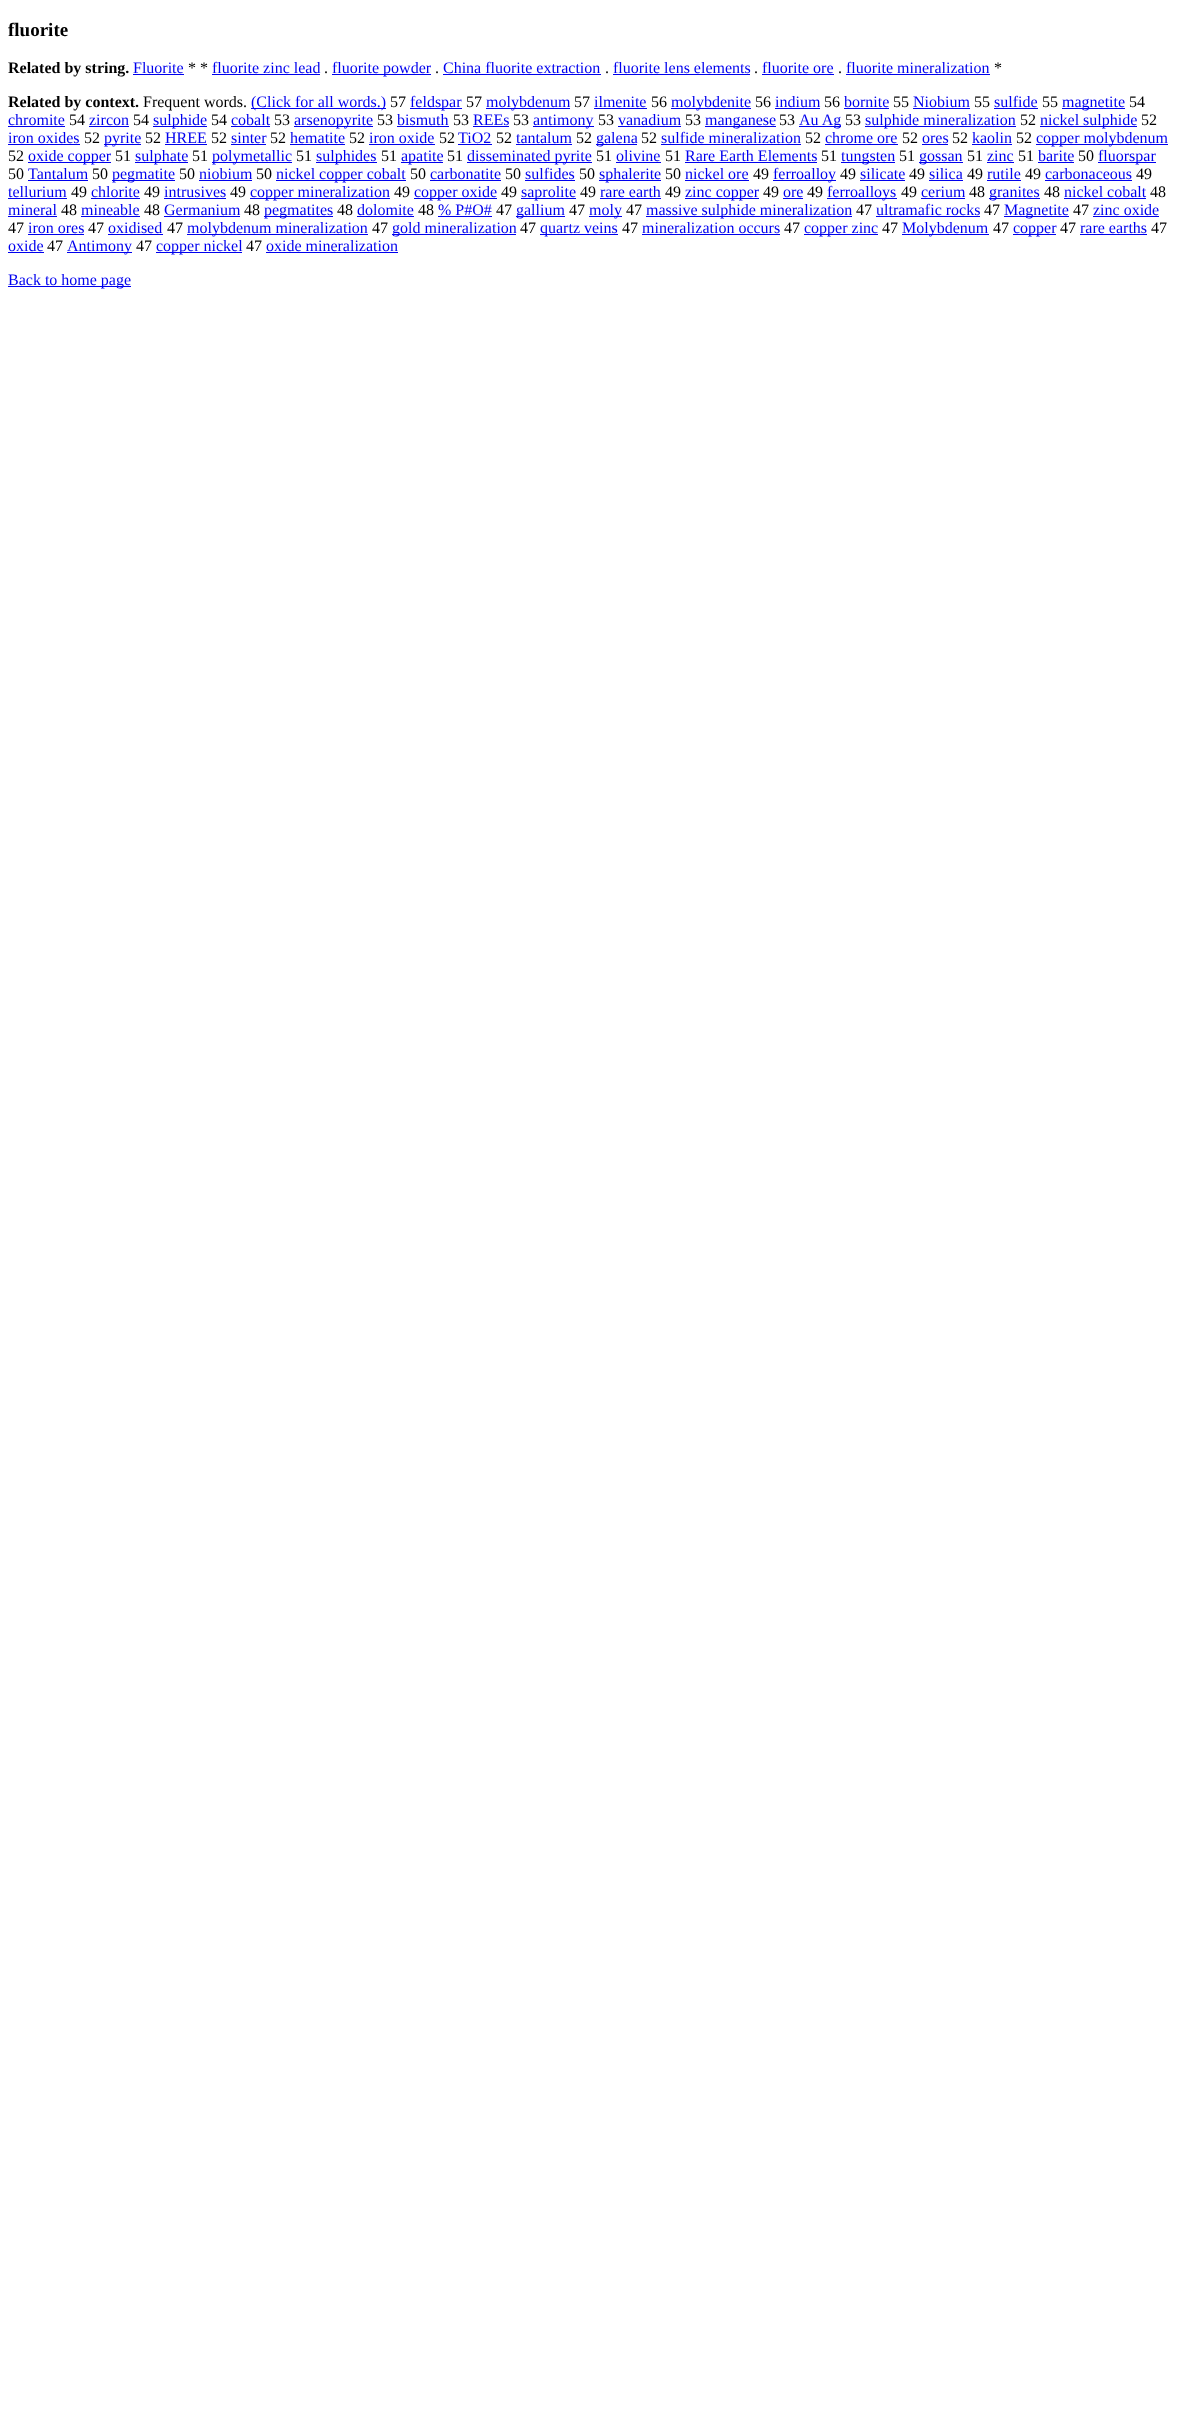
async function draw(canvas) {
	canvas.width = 1178;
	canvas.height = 2424;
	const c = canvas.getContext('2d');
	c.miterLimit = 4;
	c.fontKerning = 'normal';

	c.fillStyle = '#fff';
	c.fillRect(0, 0, 1178, 2424);
	c.font = 'bold 19px Liberation Serif';
	c.fillStyle = '#000';
	c.fillText('fluorite', 8, 36);
	c.font = 'bold 16px Liberation Serif';
	c.fillText('Related by string.', 8, 73);
	c.font = '16px Liberation Serif';
	c.fillStyle = '#00e';
	c.fillText('Fluorite', 133, 73);
	c.fillRect(133, 74, 51, 1);
	c.fillStyle = '#000';
	c.fillText('* *', 188, 73);
	c.fillStyle = '#00e';
	c.fillText('fluorite zinc lead', 212, 73);
	c.fillRect(212, 74, 108, 1);
	c.fillRect(332, 74, 99, 1);
	c.fillText('fluorite powder', 332, 73);
	c.fillText('China fluorite extraction', 443, 73);
	c.fillRect(443, 74, 158, 1);
	c.fillText('fluorite lens elements', 613, 73);
	c.fillRect(613, 74, 137, 1);
	c.fillText('fluorite ore', 762, 73);
	c.fillRect(762, 74, 72, 1);
	c.fillText('fluorite mineralization', 846, 73);
	c.fillRect(846, 74, 144, 1);
	c.fillStyle = '#000';
	for (const [text, x, y] of [
		['*', 994, 73],
		['.', 324, 73],
		['.', 435, 73],
		['.', 605, 73],
		['.', 754, 73],
		['.', 838, 73],
	]) {
		c.fillText(text, x, y);
	}
	c.font = 'bold 16px Liberation Serif';
	c.fillText('Related by context.', 8, 107);
	c.font = '16px Liberation Serif';
	c.fillText('Frequent words.', 143, 107);
	c.fillStyle = '#00e';
	c.fillRect(251, 108, 135, 1);
	c.fillText('(Click for all words.)', 251, 107);
	c.fillStyle = '#000';
	c.fillText('57', 390, 107);
	c.fillStyle = '#00e';
	c.fillRect(410, 108, 52, 1);
	c.fillText('feldspar', 410, 107);
	c.fillStyle = '#000';
	c.fillText('57', 466, 107);
	c.fillStyle = '#00e';
	c.fillRect(486, 108, 84, 1);
	c.fillText('molybdenum', 486, 107);
	c.fillStyle = '#000';
	c.fillText('57', 574, 107);
	c.fillStyle = '#00e';
	c.fillText('ilmenite', 594, 107);
	c.fillRect(594, 108, 53, 1);
	c.fillStyle = '#000';
	c.fillText('56', 651, 107);
	c.fillStyle = '#00e';
	c.fillRect(671, 108, 80, 1);
	c.fillText('molybdenite', 671, 107);
	c.fillStyle = '#000';
	c.fillText('56', 755, 107);
	c.fillStyle = '#00e';
	c.fillText('indium', 775, 107);
	c.fillRect(775, 108, 45, 1);
	c.fillStyle = '#000';
	c.fillText('56', 824, 107);
	c.fillStyle = '#00e';
	c.fillText('bornite', 844, 107);
	c.fillRect(844, 108, 45, 1);
	c.fillStyle = '#000';
	c.fillText('55', 893, 107);
	c.fillStyle = '#00e';
	c.fillText('Niobium', 913, 107);
	c.fillRect(913, 108, 57, 1);
	c.fillStyle = '#000';
	c.fillText('55', 974, 107);
	c.fillStyle = '#00e';
	c.fillText('sulfide', 994, 107);
	c.fillRect(994, 108, 44, 1);
	c.fillStyle = '#000';
	c.fillText('55', 1042, 107);
	c.fillStyle = '#00e';
	c.fillRect(1062, 108, 63, 1);
	c.fillText('magnetite', 1062, 107);
	c.fillStyle = '#000';
	c.fillText('54', 1129, 107);
	c.fillStyle = '#00e';
	c.fillText('chromite', 8, 125);
	c.fillRect(8, 126, 57, 1);
	c.fillStyle = '#000';
	c.fillText('54', 69, 125);
	c.fillStyle = '#00e';
	c.fillText('zircon', 89, 125);
	c.fillRect(89, 126, 40, 1);
	c.fillStyle = '#000';
	c.fillText('54', 133, 125);
	c.fillStyle = '#00e';
	c.fillRect(153, 126, 54, 1);
	c.fillText('sulphide', 153, 125);
	c.fillStyle = '#000';
	c.fillText('54', 211, 125);
	c.fillStyle = '#00e';
	c.fillText('cobalt', 231, 125);
	c.fillRect(231, 126, 39, 1);
	c.fillStyle = '#000';
	c.fillText('53', 274, 125);
	c.fillStyle = '#00e';
	c.fillRect(294, 126, 79, 1);
	c.fillText('arsenopyrite', 294, 125);
	c.fillStyle = '#000';
	c.fillText('53', 377, 125);
	c.fillStyle = '#00e';
	c.fillText('bismuth', 397, 125);
	c.fillRect(397, 126, 52, 1);
	c.fillStyle = '#000';
	c.fillText('53', 453, 125);
	c.fillStyle = '#00e';
	c.fillText('REEs', 473, 125);
	c.fillRect(473, 126, 36, 1);
	c.fillStyle = '#000';
	c.fillText('53', 513, 125);
	c.fillStyle = '#00e';
	c.fillRect(533, 126, 61, 1);
	c.fillText('antimony', 533, 125);
	c.fillStyle = '#000';
	c.fillText('53', 598, 125);
	c.fillStyle = '#00e';
	c.fillText('vanadium', 618, 125);
	c.fillRect(618, 126, 63, 1);
	c.fillStyle = '#000';
	c.fillText('53', 685, 125);
	c.fillStyle = '#00e';
	c.fillRect(705, 126, 71, 1);
	c.fillText('manganese', 705, 125);
	c.fillStyle = '#000';
	c.fillText('53', 779, 125);
	c.fillStyle = '#00e';
	c.fillRect(799, 126, 42, 1);
	c.fillText('Au Ag', 799, 125);
	c.fillStyle = '#000';
	c.fillText('53', 845, 125);
	c.fillStyle = '#00e';
	c.fillRect(865, 126, 151, 1);
	c.fillText('sulphide mineralization', 865, 125);
	c.fillStyle = '#000';
	c.fillText('52', 1020, 125);
	c.fillStyle = '#00e';
	c.fillRect(1040, 126, 97, 1);
	c.fillText('nickel sulphide', 1040, 125);
	c.fillStyle = '#000';
	c.fillText('52', 1141, 125);
	c.fillStyle = '#00e';
	c.fillText('iron oxides', 8, 143);
	c.fillRect(8, 144, 72, 1);
	c.fillStyle = '#000';
	c.fillText('52', 84, 143);
	c.fillStyle = '#00e';
	c.fillRect(104, 144, 37, 1);
	c.fillText('pyrite', 104, 143);
	c.fillStyle = '#000';
	c.fillText('52', 145, 143);
	c.fillStyle = '#00e';
	c.fillText('HREE', 165, 143);
	c.fillRect(165, 144, 42, 1);
	c.fillStyle = '#000';
	c.fillText('52', 211, 143);
	c.fillStyle = '#00e';
	c.fillText('sinter', 231, 143);
	c.fillRect(231, 144, 35, 1);
	c.fillStyle = '#000';
	c.fillText('52', 270, 143);
	c.fillStyle = '#00e';
	c.fillText('hematite', 290, 143);
	c.fillRect(290, 144, 55, 1);
	c.fillStyle = '#000';
	c.fillText('52', 349, 143);
	c.fillStyle = '#00e';
	c.fillText('iron oxide', 369, 143);
	c.fillRect(369, 144, 66, 1);
	c.fillStyle = '#000';
	c.fillText('52', 439, 143);
	c.fillStyle = '#00e';
	c.fillText('TiO2', 458, 143);
	c.fillRect(458, 144, 34, 1);
	c.fillStyle = '#000';
	c.fillText('52', 496, 143);
	c.fillStyle = '#00e';
	c.fillText('tantalum', 516, 143);
	c.fillRect(516, 144, 56, 1);
	c.fillStyle = '#000';
	c.fillText('52', 576, 143);
	c.fillStyle = '#00e';
	c.fillRect(596, 144, 41, 1);
	c.fillText('galena', 596, 143);
	c.fillStyle = '#000';
	c.fillText('52', 641, 143);
	c.fillStyle = '#00e';
	c.fillText('sulfide mineralization', 661, 143);
	c.fillRect(661, 144, 140, 1);
	c.fillStyle = '#000';
	c.fillText('52', 805, 143);
	c.fillStyle = '#00e';
	c.fillText('chrome ore', 825, 143);
	c.fillRect(825, 144, 73, 1);
	c.fillStyle = '#000';
	c.fillText('52', 902, 143);
	c.fillStyle = '#00e';
	c.fillText('ores', 922, 143);
	c.fillRect(922, 144, 26, 1);
	c.fillStyle = '#000';
	c.fillText('52', 952, 143);
	c.fillStyle = '#00e';
	c.fillText('kaolin', 972, 143);
	c.fillRect(972, 144, 40, 1);
	c.fillStyle = '#000';
	c.fillText('52', 1016, 143);
	c.fillStyle = '#00e';
	c.fillRect(1036, 144, 132, 1);
	c.fillText('copper molybdenum', 1036, 143);
	c.fillStyle = '#000';
	c.fillText('52', 8, 161);
	c.fillStyle = '#00e';
	c.fillRect(28, 162, 83, 1);
	c.fillText('oxide copper', 28, 161);
	c.fillStyle = '#000';
	c.fillText('51', 115, 161);
	c.fillStyle = '#00e';
	c.fillRect(135, 162, 53, 1);
	c.fillText('sulphate', 135, 161);
	c.fillStyle = '#000';
	c.fillText('51', 192, 161);
	c.fillStyle = '#00e';
	c.fillRect(212, 162, 80, 1);
	c.fillText('polymetallic', 212, 161);
	c.fillStyle = '#000';
	c.fillText('51', 296, 161);
	c.fillStyle = '#00e';
	c.fillRect(316, 162, 61, 1);
	c.fillText('sulphides', 316, 161);
	c.fillStyle = '#000';
	c.fillText('51', 381, 161);
	c.fillStyle = '#00e';
	c.fillRect(401, 162, 42, 1);
	c.fillText('apatite', 401, 161);
	c.fillStyle = '#000';
	c.fillText('51', 447, 161);
	c.fillStyle = '#00e';
	c.fillRect(467, 162, 125, 1);
	c.fillText('disseminated pyrite', 467, 161);
	c.fillStyle = '#000';
	c.fillText('51', 596, 161);
	c.fillStyle = '#00e';
	c.fillText('olivine', 616, 161);
	c.fillRect(616, 162, 45, 1);
	c.fillStyle = '#000';
	c.fillText('51', 665, 161);
	c.fillStyle = '#00e';
	c.fillText('Rare Earth Elements', 685, 161);
	c.fillRect(685, 162, 132, 1);
	c.fillStyle = '#000';
	c.fillText('51', 821, 161);
	c.fillStyle = '#00e';
	c.fillRect(841, 162, 54, 1);
	c.fillText('tungsten', 841, 161);
	c.fillStyle = '#000';
	c.fillText('51', 899, 161);
	c.fillStyle = '#00e';
	c.fillRect(919, 162, 44, 1);
	c.fillText('gossan', 919, 161);
	c.fillStyle = '#000';
	c.fillText('51', 967, 161);
	c.fillStyle = '#00e';
	c.fillText('zinc', 987, 161);
	c.fillRect(987, 162, 27, 1);
	c.fillStyle = '#000';
	c.fillText('51', 1018, 161);
	c.fillStyle = '#00e';
	c.fillText('barite', 1038, 161);
	c.fillRect(1038, 162, 36, 1);
	c.fillStyle = '#000';
	c.fillText('50', 1078, 161);
	c.fillStyle = '#00e';
	c.fillRect(1098, 162, 58, 1);
	c.fillText('fluorspar', 1098, 161);
	c.fillStyle = '#000';
	c.fillText('50', 8, 179);
	c.fillStyle = '#00e';
	c.fillText('Tantalum', 28, 179);
	c.fillRect(28, 180, 60, 1);
	c.fillStyle = '#000';
	c.fillText('50', 92, 179);
	c.fillStyle = '#00e';
	c.fillRect(112, 180, 63, 1);
	c.fillText('pegmatite', 112, 179);
	c.fillStyle = '#000';
	c.fillText('50', 179, 179);
	c.fillStyle = '#00e';
	c.fillText('niobium', 199, 179);
	c.fillRect(199, 180, 53, 1);
	c.fillStyle = '#000';
	c.fillText('50', 256, 179);
	c.fillStyle = '#00e';
	c.fillRect(276, 180, 130, 1);
	c.fillText('nickel copper cobalt', 276, 179);
	c.fillStyle = '#000';
	c.fillText('50', 410, 179);
	c.fillStyle = '#00e';
	c.fillText('carbonatite', 430, 179);
	c.fillRect(430, 180, 71, 1);
	c.fillStyle = '#000';
	c.fillText('50', 505, 179);
	c.fillStyle = '#00e';
	c.fillText('sulfides', 525, 179);
	c.fillRect(525, 180, 50, 1);
	c.fillStyle = '#000';
	c.fillText('50', 579, 179);
	c.fillStyle = '#00e';
	c.fillRect(599, 180, 62, 1);
	c.fillText('sphalerite', 599, 179);
	c.fillStyle = '#000';
	c.fillText('50', 665, 179);
	c.fillStyle = '#00e';
	c.fillText('nickel ore', 685, 179);
	c.fillRect(685, 180, 64, 1);
	c.fillStyle = '#000';
	c.fillText('49', 753, 179);
	c.fillStyle = '#00e';
	c.fillRect(773, 180, 63, 1);
	c.fillText('ferroalloy', 773, 179);
	c.fillStyle = '#000';
	c.fillText('49', 840, 179);
	c.fillStyle = '#00e';
	c.fillText('silicate', 860, 179);
	c.fillRect(860, 180, 45, 1);
	c.fillStyle = '#000';
	c.fillText('49', 909, 179);
	c.fillStyle = '#00e';
	c.fillText('silica', 929, 179);
	c.fillRect(929, 180, 34, 1);
	c.fillStyle = '#000';
	c.fillText('49', 967, 179);
	c.fillStyle = '#00e';
	c.fillText('rutile', 987, 179);
	c.fillRect(987, 180, 34, 1);
	c.fillStyle = '#000';
	c.fillText('49', 1025, 179);
	c.fillStyle = '#00e';
	c.fillText('carbonaceous', 1045, 179);
	c.fillRect(1045, 180, 87, 1);
	c.fillStyle = '#000';
	c.fillText('49', 1136, 179);
	c.fillStyle = '#00e';
	c.fillText('tellurium', 8, 197);
	c.fillRect(8, 198, 59, 1);
	c.fillStyle = '#000';
	c.fillText('49', 71, 197);
	c.fillStyle = '#00e';
	c.fillText('chlorite', 91, 197);
	c.fillRect(91, 198, 49, 1);
	c.fillStyle = '#000';
	c.fillText('49', 144, 197);
	c.fillStyle = '#00e';
	c.fillText('intrusives', 164, 197);
	c.fillRect(164, 198, 62, 1);
	c.fillStyle = '#000';
	c.fillText('49', 230, 197);
	c.fillStyle = '#00e';
	c.fillRect(250, 198, 140, 1);
	c.fillText('copper mineralization', 250, 197);
	c.fillStyle = '#000';
	c.fillText('49', 394, 197);
	c.fillStyle = '#00e';
	c.fillRect(414, 198, 83, 1);
	c.fillText('copper oxide', 414, 197);
	c.fillStyle = '#000';
	c.fillText('49', 501, 197);
	c.fillStyle = '#00e';
	c.fillRect(521, 198, 55, 1);
	c.fillText('saprolite', 521, 197);
	c.fillStyle = '#000';
	c.fillText('49', 580, 197);
	c.fillStyle = '#00e';
	c.fillText('rare earth', 600, 197);
	c.fillRect(600, 198, 61, 1);
	c.fillStyle = '#000';
	c.fillText('49', 665, 197);
	c.fillStyle = '#00e';
	c.fillRect(685, 198, 74, 1);
	c.fillText('zinc copper', 685, 197);
	c.fillStyle = '#000';
	c.fillText('49', 763, 197);
	c.fillStyle = '#00e';
	c.fillText('ore', 783, 197);
	c.fillRect(783, 198, 20, 1);
	c.fillStyle = '#000';
	c.fillText('49', 807, 197);
	c.fillStyle = '#00e';
	c.fillRect(827, 198, 70, 1);
	c.fillText('ferroalloys', 827, 197);
	c.fillStyle = '#000';
	c.fillText('49', 901, 197);
	c.fillStyle = '#00e';
	c.fillText('cerium', 921, 197);
	c.fillRect(921, 198, 44, 1);
	c.fillStyle = '#000';
	c.fillText('48', 969, 197);
	c.fillStyle = '#00e';
	c.fillRect(989, 198, 51, 1);
	c.fillText('granites', 989, 197);
	c.fillStyle = '#000';
	c.fillText('48', 1044, 197);
	c.fillStyle = '#00e';
	c.fillText('nickel cobalt', 1064, 197);
	c.fillRect(1064, 198, 82, 1);
	c.fillStyle = '#000';
	c.fillText('48', 1150, 197);
	c.fillStyle = '#00e';
	c.fillText('mineral', 8, 215);
	c.fillRect(8, 216, 49, 1);
	c.fillStyle = '#000';
	c.fillText('48', 61, 215);
	c.fillStyle = '#00e';
	c.fillText('mineable', 81, 215);
	c.fillRect(81, 216, 59, 1);
	c.fillStyle = '#000';
	c.fillText('48', 144, 215);
	c.fillStyle = '#00e';
	c.fillText('Germanium', 164, 215);
	c.fillRect(164, 216, 76, 1);
	c.fillStyle = '#000';
	c.fillText('48', 244, 215);
	c.fillStyle = '#00e';
	c.fillRect(264, 216, 69, 1);
	c.fillText('pegmatites', 264, 215);
	c.fillStyle = '#000';
	c.fillText('48', 337, 215);
	c.fillStyle = '#00e';
	c.fillText('dolomite', 357, 215);
	c.fillRect(357, 216, 57, 1);
	c.fillStyle = '#000';
	c.fillText('48', 418, 215);
	c.fillStyle = '#00e';
	c.fillText('% P#O#', 438, 215);
	c.fillRect(438, 216, 54, 1);
	c.fillStyle = '#000';
	c.fillText('47', 496, 215);
	c.fillStyle = '#00e';
	c.fillRect(516, 216, 49, 1);
	c.fillText('gallium', 516, 215);
	c.fillStyle = '#000';
	c.fillText('47', 569, 215);
	c.fillStyle = '#00e';
	c.fillRect(589, 216, 33, 1);
	c.fillText('moly', 589, 215);
	c.fillStyle = '#000';
	c.fillText('47', 626, 215);
	c.fillStyle = '#00e';
	c.fillRect(646, 216, 206, 1);
	c.fillText('massive sulphide mineralization', 646, 215);
	c.fillStyle = '#000';
	c.fillText('47', 856, 215);
	c.fillStyle = '#00e';
	c.fillText('ultramafic rocks', 876, 215);
	c.fillRect(876, 216, 104, 1);
	c.fillStyle = '#000';
	c.fillText('47', 984, 215);
	c.fillStyle = '#00e';
	c.fillRect(1004, 216, 65, 1);
	c.fillText('Magnetite', 1004, 215);
	c.fillStyle = '#000';
	c.fillText('47', 1073, 215);
	c.fillStyle = '#00e';
	c.fillText('zinc oxide', 1093, 215);
	c.fillRect(1093, 216, 66, 1);
	c.fillStyle = '#000';
	c.fillText('47', 8, 233);
	c.fillStyle = '#00e';
	c.fillText('iron ores', 28, 233);
	c.fillRect(28, 234, 56, 1);
	c.fillStyle = '#000';
	c.fillText('47', 88, 233);
	c.fillStyle = '#00e';
	c.fillText('oxidised', 108, 233);
	c.fillRect(108, 234, 55, 1);
	c.fillStyle = '#000';
	c.fillText('47', 167, 233);
	c.fillStyle = '#00e';
	c.fillRect(187, 234, 181, 1);
	c.fillText('molybdenum mineralization', 187, 233);
	c.fillStyle = '#000';
	c.fillText('47', 372, 233);
	c.fillStyle = '#00e';
	c.fillRect(392, 234, 124, 1);
	c.fillText('gold mineralization', 392, 233);
	c.fillStyle = '#000';
	c.fillText('47', 520, 233);
	c.fillStyle = '#00e';
	c.fillRect(540, 234, 78, 1);
	c.fillText('quartz veins', 540, 233);
	c.fillStyle = '#000';
	c.fillText('47', 622, 233);
	c.fillStyle = '#00e';
	c.fillText('mineralization occurs', 642, 233);
	c.fillRect(642, 234, 138, 1);
	c.fillStyle = '#000';
	c.fillText('47', 784, 233);
	c.fillStyle = '#00e';
	c.fillRect(804, 234, 74, 1);
	c.fillText('copper zinc', 804, 233);
	c.fillStyle = '#000';
	c.fillText('47', 882, 233);
	c.fillStyle = '#00e';
	c.fillRect(902, 234, 87, 1);
	c.fillText('Molybdenum', 902, 233);
	c.fillStyle = '#000';
	c.fillText('47', 993, 233);
	c.fillStyle = '#00e';
	c.fillRect(1013, 234, 43, 1);
	c.fillText('copper', 1013, 233);
	c.fillStyle = '#000';
	c.fillText('47', 1060, 233);
	c.fillStyle = '#00e';
	c.fillText('rare earths', 1080, 233);
	c.fillRect(1080, 234, 67, 1);
	c.fillStyle = '#000';
	c.fillText('47', 1151, 233);
	c.fillStyle = '#00e';
	c.fillText('oxide', 8, 251);
	c.fillRect(8, 252, 36, 1);
	c.fillStyle = '#000';
	c.fillText('47', 47, 251);
	c.fillStyle = '#00e';
	c.fillRect(67, 252, 65, 1);
	c.fillText('Antimony', 67, 251);
	c.fillStyle = '#000';
	c.fillText('47', 136, 251);
	c.fillStyle = '#00e';
	c.fillRect(156, 252, 86, 1);
	c.fillText('copper nickel', 156, 251);
	c.fillStyle = '#000';
	c.fillText('47', 246, 251);
	c.fillStyle = '#00e';
	c.fillText('oxide mineralization', 266, 251);
	c.fillRect(266, 252, 132, 1);
	c.fillRect(8, 286, 123, 1);
	c.fillText('Back to home page', 8, 285);
}

draw(document.querySelector('canvas'));
